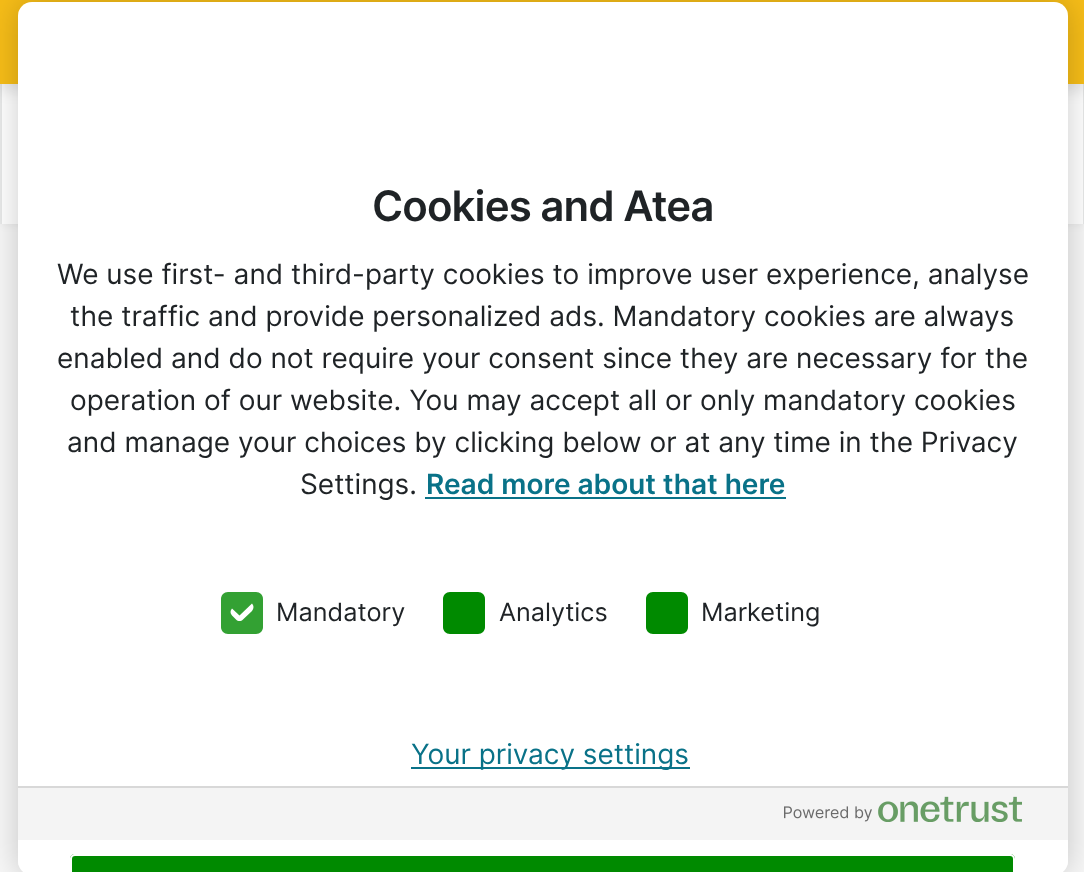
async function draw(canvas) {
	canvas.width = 1084;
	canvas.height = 872;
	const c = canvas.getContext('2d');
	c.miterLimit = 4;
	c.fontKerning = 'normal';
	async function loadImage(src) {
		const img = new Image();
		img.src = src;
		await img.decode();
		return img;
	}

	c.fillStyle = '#f7f7f7';
	c.fillRect(0, 0, 1084, 872);
	c.fillStyle = '#edeeee';
	c.fillRect(1083, 84, 1, 140);
	c.fillRect(0, 84, 2, 140);
	c.fillStyle = '#0000000d';
	c.filter = 'blur(3.5px)';
	c.beginPath();
	c.rect(2, 2, 1081, 224);
	c.fill();
	c.filter = 'none';
	c.fillStyle = '#fff';
	c.fillRect(2, 84, 1081, 140);
	c.fillStyle = '#0000001a';
	c.filter = 'blur(7px)';
	c.beginPath();
	c.rect(0, 7, 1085, 84);
	c.fill();
	c.filter = 'none';
	c.fillStyle = '#f6bd18';
	c.fillRect(0, 0, 1084, 84);
	c.save();
	c.beginPath();
	c.moveTo(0, 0);
	c.lineTo(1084, 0);
	c.lineTo(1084, 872);
	c.lineTo(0, 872);
	c.closePath();
	c.moveTo(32, 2);
	c.lineTo(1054, 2);
	c.bezierCurveTo(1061.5, 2, 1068, 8.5, 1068, 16);
	c.lineTo(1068, 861);
	c.bezierCurveTo(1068, 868.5, 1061.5, 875, 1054, 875);
	c.lineTo(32, 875);
	c.bezierCurveTo(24.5, 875, 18, 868.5, 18, 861);
	c.lineTo(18, 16);
	c.bezierCurveTo(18, 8.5, 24.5, 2, 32, 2);
	c.closePath();
	c.clip('evenodd');
	c.fillStyle = '#00000033';
	c.filter = 'blur(16px)';
	c.beginPath();
	c.roundRect(18, 2, 1050, 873, 14);
	c.fill();
	c.filter = 'none';
	c.restore();
	c.fillStyle = '#fff';
	c.beginPath();
	c.roundRect(18, 2, 1050, 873, 14);
	c.fill();
	c.letterSpacing = '-0.9px';
	c.font = '600 42px Inter';
	c.fillStyle = '#1f2326';
	c.fillText('Cookies and Atea', 372, 221);
	c.letterSpacing = '0px';
	c.font = '28px Inter';
	for (const [text, x, y] of [
		['We use first- and third-party cookies to improve user experience, analyse', 57, 284],
		['the traffic and provide personalized ads. Mandatory cookies are always', 70, 326],
		['enabled and do not require your consent since they are necessary for the', 57, 368],
		['operation of our website. You may accept all or only mandatory cookies', 70, 410],
		['and manage your choices by clicking below or at any time in the Privacy', 67, 452],
		['Settings.', 300, 494],
	]) {
		c.fillText(text, x, y);
	}
	c.font = '600 28px Inter';
	c.fillStyle = '#097288';
	c.fillText('Read more about that here', 426, 494);
	c.fillRect(425, 497, 361, 2);
	c.fillStyle = '#33a133';
	c.beginPath();
	c.moveTo(228, 592);
	c.lineTo(256, 592);
	c.bezierCurveTo(260, 592, 263, 595, 263, 599);
	c.lineTo(263, 627);
	c.bezierCurveTo(263, 631, 260, 634, 256, 634);
	c.lineTo(228, 634);
	c.bezierCurveTo(224, 634, 221, 631, 221, 627);
	c.lineTo(221, 599);
	c.bezierCurveTo(221, 595, 224, 592, 228, 592);
	c.closePath();
	c.fill();
	c.fillStyle = '#fff';
	c.beginPath();
	c.moveTo(232, 608.5);
	c.lineTo(241, 599.5);
	c.bezierCurveTo(243, 597.5, 246, 597.5, 248, 599.5);
	c.lineTo(252, 603.5);
	c.bezierCurveTo(254, 605.5, 254, 608.5, 252, 611);
	c.lineTo(243, 619.5);
	c.bezierCurveTo(241, 621.5, 238, 621.5, 236, 619.5);
	c.lineTo(232, 615.5);
	c.bezierCurveTo(230, 613.5, 230, 610.5, 232, 608.5);
	c.closePath();
	c.moveTo(232, 608.5);
	c.lineTo(241, 599.5);
	c.bezierCurveTo(243, 597.5, 246, 597.5, 248, 599.5);
	c.lineTo(252, 603.5);
	c.lineTo(239.5, 615.5);
	c.closePath();
	c.fill('evenodd');
	c.font = '25.25px Inter';
	c.fillStyle = '#1f2326';
	c.fillText('Mandatory', 276, 621);
	c.fillStyle = '#008a00';
	c.beginPath();
	c.moveTo(450, 592);
	c.lineTo(478, 592);
	c.bezierCurveTo(482, 592, 485, 595, 485, 599);
	c.lineTo(485, 627);
	c.bezierCurveTo(485, 631, 482, 634, 478, 634);
	c.lineTo(450, 634);
	c.bezierCurveTo(446, 634, 443, 631, 443, 627);
	c.lineTo(443, 599);
	c.bezierCurveTo(443, 595, 446, 592, 450, 592);
	c.closePath();
	c.fill();
	c.fillStyle = '#1f2326';
	c.fillText('Analytics', 499, 621);
	c.fillStyle = '#008a00';
	c.beginPath();
	c.moveTo(653, 592);
	c.lineTo(681, 592);
	c.bezierCurveTo(685, 592, 688, 595, 688, 599);
	c.lineTo(688, 627);
	c.bezierCurveTo(688, 631, 685, 634, 681, 634);
	c.lineTo(653, 634);
	c.bezierCurveTo(649, 634, 646, 631, 646, 627);
	c.lineTo(646, 599);
	c.bezierCurveTo(646, 595, 649, 592, 653, 592);
	c.closePath();
	c.fill();
	c.fillStyle = '#1f2326';
	c.fillText('Marketing', 701, 621);
	c.fillStyle = '#097288';
	c.fillRect(411, 767, 279, 2);
	c.font = '28px Inter';
	c.fillText('Your privacy settings', 411, 764);
	c.fillStyle = '#008a00';
	c.beginPath();
	c.moveTo(75, 854);
	c.lineTo(1010, 854);
	c.bezierCurveTo(1013, 854, 1015, 856, 1015, 859);
	c.lineTo(1015, 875);
	c.lineTo(70, 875);
	c.lineTo(70, 859);
	c.bezierCurveTo(70, 856, 72, 854, 75, 854);
	c.closePath();
	c.fill();
	c.fillStyle = '#fff';
	c.beginPath();
	c.moveTo(75, 854);
	c.bezierCurveTo(72, 854, 70, 856, 70, 859);
	c.lineTo(70, 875);
	c.lineTo(72, 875);
	c.lineTo(72, 859);
	c.bezierCurveTo(72, 857, 73, 856, 75, 856);
	c.lineTo(1010, 856);
	c.bezierCurveTo(1012, 856, 1013, 857, 1013, 859);
	c.lineTo(1013, 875);
	c.lineTo(1015, 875);
	c.lineTo(1015, 859);
	c.bezierCurveTo(1015, 856, 1013, 854, 1010, 854);
	c.closePath();
	c.fill();
	c.fillStyle = '#f4f4f4';
	c.fillRect(18, 788, 1050, 52);
	c.fillStyle = '#d8d8d8';
	c.fillRect(18, 786, 1050, 2);
	c.drawImage(await loadImage('img1.png'), 784, 796, 238, 26);
}

draw(document.querySelector('canvas'));
